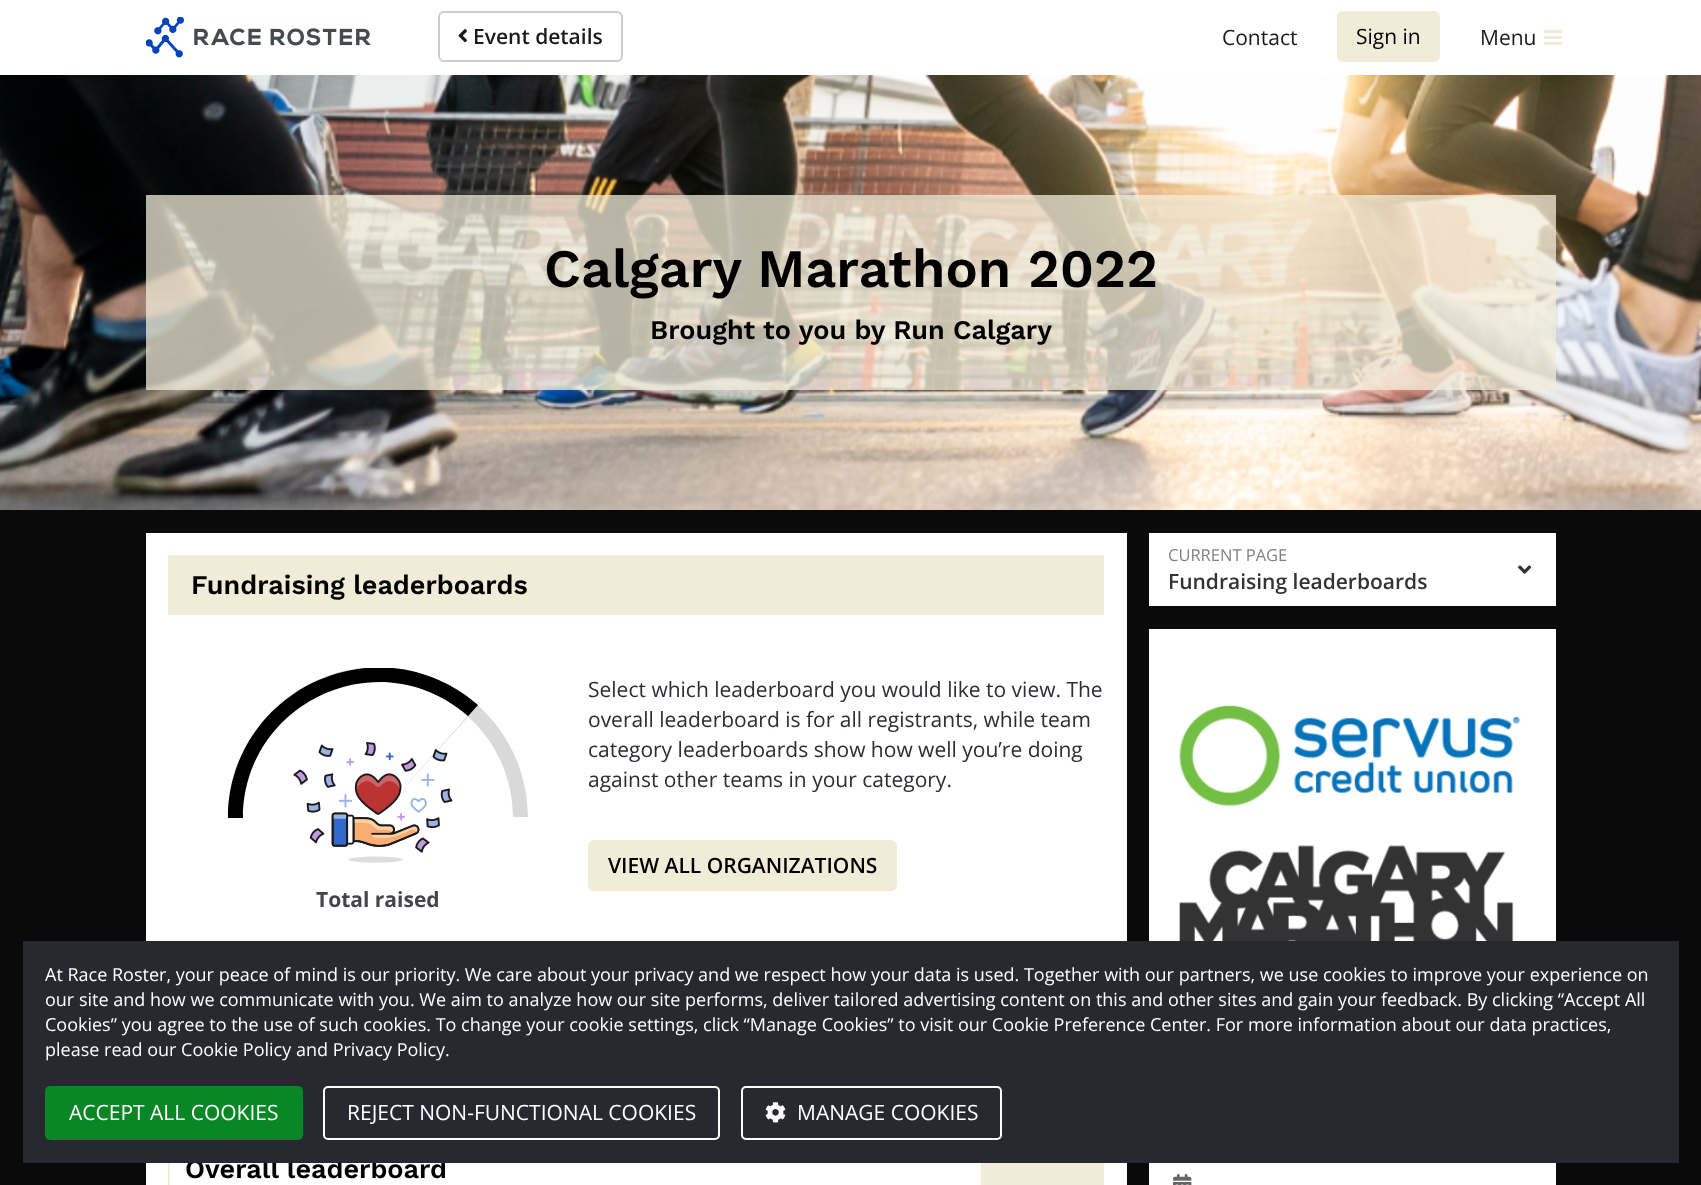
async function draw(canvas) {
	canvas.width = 1701;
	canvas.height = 1185;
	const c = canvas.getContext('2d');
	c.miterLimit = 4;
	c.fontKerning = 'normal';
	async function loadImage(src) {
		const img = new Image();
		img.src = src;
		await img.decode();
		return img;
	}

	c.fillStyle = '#0a0a0a';
	c.fillRect(0, 0, 1701, 1185);
	c.fillStyle = '#fff';
	c.fillRect(0, 0, 1701, 75);
	c.drawImage(await loadImage('img1.png'), 146, 17, 225, 41);
	c.beginPath();
	c.roundRect(439, 12, 183, 49, 5);
	c.strokeStyle = '#ccc';
	c.lineWidth = 2;
	c.stroke();
	c.drawImage(await loadImage('img2.png'), 458, 29, 9, 14);
	c.font = '600 21px Open Sans';
	c.fillStyle = '#1a1a1a';
	c.fillText('Event details', 473, 44);
	c.font = '21px Open Sans';
	c.fillText('Contact', 1222, 45);
	c.fillStyle = '#f1ecd8';
	c.beginPath();
	c.roundRect(1337, 11, 103, 51, 6);
	c.fill();
	c.fillStyle = '#000';
	c.fillText('Sign in', 1356, 44);
	c.fillStyle = '#1a1a1a';
	c.fillText('Menu', 1480, 45);
	for (const [x, y, w, h, color] of [
		[1544, 30, 18, 3, '#f1ecd8'],
		[1544, 36, 18, 3, '#f1ecd8'],
		[1544, 42, 18, 3, '#f1ecd8'],
	]) {
		c.fillStyle = color;
		c.fillRect(x, y, w, h);
	}
	c.drawImage(await loadImage('img3.png'), 0, 75, 1701, 435);
	c.fillStyle = '#f1ecd8bf';
	c.fillRect(146, 195, 1410, 195);
	c.font = '600 54px Work Sans';
	c.fillStyle = '#000';
	c.fillText('Calgary Marathon 2022', 544, 287);
	c.font = '600 27px Work Sans';
	c.fillText('Brought to you by Run Calgary', 650, 339);
	c.fillStyle = '#fff';
	c.fillRect(146, 533, 981, 652);
	c.fillStyle = '#f1ecd8';
	c.fillRect(168, 555, 936, 60);
	c.fillStyle = '#000';
	c.fillText('Fundraising leaderboards', 191, 594);
	c.font = '21px Open Sans';
	c.fillStyle = '#2d2d33';
	for (const [text, x, y] of [
		['Select which leaderboard you would like to view. The', 588, 697],
		['overall leaderboard is for all registrants, while team', 588, 727],
		['category leaderboards show how well you’re doing', 588, 757],
		['against other teams in your category.', 588, 787],
	]) {
		c.fillText(text, x, y);
	}
	c.fillStyle = '#f1ecd8';
	c.beginPath();
	c.roundRect(588, 840, 309, 51, 6);
	c.fill();
	c.font = '600 21px Open Sans';
	c.fillStyle = '#000';
	c.fillText('VIEW ALL ORGANIZATIONS', 608, 873);
	c.drawImage(await loadImage('img4.png'), 293, 742, 160, 121);
	c.fillStyle = '#d9d9d9';
	c.beginPath();
	c.moveTo(528, 817);
	c.bezierCurveTo(528, 740, 470, 677, 395, 668);
	c.lineTo(361, 668);
	c.bezierCurveTo(286, 677, 228, 740, 228, 817);
	c.lineTo(243, 817);
	c.bezierCurveTo(243, 743, 303, 682, 378, 682);
	c.bezierCurveTo(453, 682, 513, 743, 513, 817);
	c.closePath();
	c.fill();
	c.fillStyle = '#000';
	c.beginPath();
	c.moveTo(478, 705);
	c.bezierCurveTo(454, 684, 424, 671, 393, 668);
	c.lineTo(365, 668);
	c.bezierCurveTo(287, 676, 228, 740, 228, 818);
	c.lineTo(243, 818);
	c.bezierCurveTo(243, 703, 379, 638, 468, 716);
	c.lineTo(378, 817);
	c.closePath();
	c.moveTo(377, 818);
	c.lineTo(378, 817);
	c.closePath();
	c.fill('evenodd');
	c.font = 'bold 21px Open Sans';
	c.fillStyle = '#44444d';
	c.fillText('Total raised', 316, 907);
	c.strokeStyle = '#f1ecd8';
	c.strokeRect(169, 1138, 934, 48);
	c.font = '600 27px Work Sans';
	c.fillStyle = '#000';
	c.fillText('Overall leaderboard', 185, 1178);
	c.fillStyle = '#f1ecd8';
	c.fillRect(981, 1163, 121, 22);
	c.fillStyle = '#fff';
	c.fillRect(1149, 533, 407, 73);
	c.font = '16.5px Open Sans';
	c.fillStyle = '#808080';
	c.fillText('CURRENT PAGE', 1168, 561);
	c.drawImage(await loadImage('img5.png'), 1518, 565, 14, 9);
	c.font = '600 21px Open Sans';
	c.fillStyle = '#333';
	c.fillText('Fundraising leaderboards', 1168, 589);
	c.fillStyle = '#fff';
	c.fillRect(1149, 629, 407, 312);
	c.drawImage(await loadImage('img6.png'), 1179, 705, 342, 236);
	c.fillRect(1149, 1163, 407, 22);
	c.drawImage(await loadImage('img7.png'), 1173, 1174, 19, 11);
	c.fillStyle = '#272930';
	c.fillRect(23, 941, 1656, 222);
	c.font = '18px Open Sans';
	c.fillStyle = '#fff';
	for (const [text, x, y] of [
		['At Race Roster, your peace of mind is our priority. We care about your privacy and we respect how your data is used. Together with our partners, we use cookies to improve your experience on', 45, 981],
		['our site and how we communicate with you. We aim to analyze how our site performs, deliver tailored advertising content on this and other sites and gain your feedback. By clicking “Accept All', 45, 1006],
		['Cookies” you agree to the use of such cookies. To change your cookie settings, click “Manage Cookies” to visit our Cookie Preference Center. For more information about our data practices,', 45, 1031],
		['please read our Cookie Policy and Privacy Policy.', 45, 1056],
	]) {
		c.fillText(text, x, y);
	}
	c.fillStyle = '#098726';
	c.beginPath();
	c.roundRect(45, 1086, 258, 54, 5);
	c.fill();
	c.font = '21px Open Sans';
	c.fillStyle = '#fff';
	c.fillText('ACCEPT ALL COOKIES', 69, 1120);
	c.beginPath();
	c.roundRect(324, 1087, 395, 52, 4);
	c.strokeStyle = '#fff';
	c.stroke();
	c.fillText('REJECT NON-FUNCTIONAL COOKIES', 347, 1120);
	c.beginPath();
	c.roundRect(742, 1087, 259, 52, 4);
	c.stroke();
	c.drawImage(await loadImage('img8.png'), 765, 1102, 21, 21);
	c.fillText('MANAGE COOKIES', 797, 1120);
}

draw(document.querySelector('canvas'));
